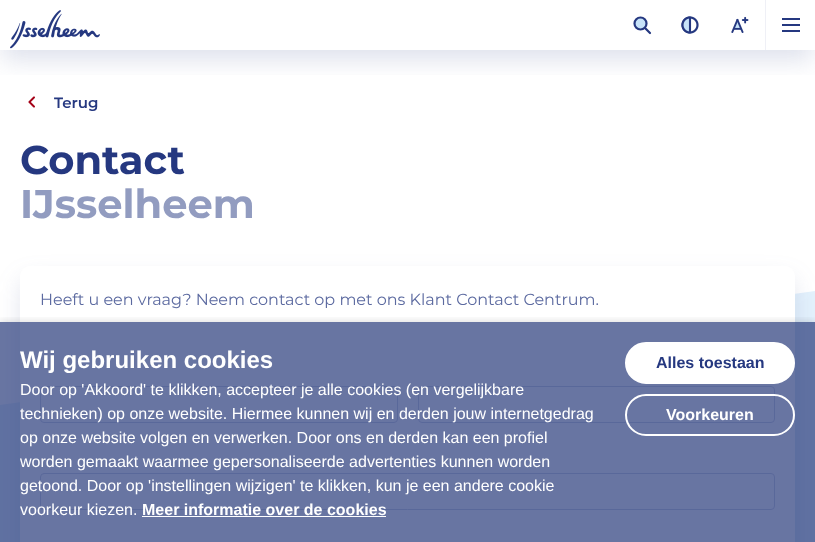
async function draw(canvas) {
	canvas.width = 815;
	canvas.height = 542;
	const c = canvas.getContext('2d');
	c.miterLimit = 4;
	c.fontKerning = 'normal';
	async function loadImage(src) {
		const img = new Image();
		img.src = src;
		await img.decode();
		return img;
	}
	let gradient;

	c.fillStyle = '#fff';
	c.fillRect(0, 0, 815, 542);
	c.drawImage(await loadImage('img4.png'), 28, 96, 7, 12);
	c.save();
	c.beginPath();
	c.rect(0, 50, 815, 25);
	c.clip();
	c.fillStyle = '#5c6aa033';
	c.filter = 'blur(12px)';
	c.beginPath();
	c.rect(2, 14, 811, 46);
	c.fill();
	c.filter = 'none';
	c.restore();
	c.drawImage(await loadImage('img1.png'), 10, 10, 90, 39);
	c.fillStyle = '#c7e3f9';
	c.beginPath();
	c.arc(640.5, 23.5, 6, 0, 2 * Math.PI);
	c.fill();
	c.strokeStyle = '#253880';
	c.lineWidth = 2.2;
	c.stroke();
	c.beginPath();
	c.moveTo(650, 33);
	c.lineTo(645.5, 28.5);
	c.lineCap = 'round';
	c.stroke();
	c.drawImage(await loadImage('img2.png'), 681, 16, 18, 18);
	c.drawImage(await loadImage('img3.png'), 731, 16, 18, 17);
	for (const [x, y, w, h, color] of [
		[765, 0, 1, 50, '#eff0f6'],
		[782, 18, 18, 2, '#253880'],
		[782, 24, 18, 2, '#253880'],
		[782, 30, 18, 2, '#253880'],
	]) {
		c.fillStyle = color;
		c.fillRect(x, y, w, h);
	}
	c.font = '600 15px Montserrat';
	c.fillText('Terug', 54, 108);
	c.font = 'bold 40px Montserrat';
	c.fillText('Contact', 20, 174);
	c.fillStyle = '#929cc0';
	c.fillText('IJsselheem', 20, 218);
	gradient = c.createLinearGradient(407, 348, 408, 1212);
	gradient.addColorStop(0.5, '#e3f1fc');
	gradient.addColorStop(1, '#fdffff');
	c.fillStyle = gradient;
	c.beginPath();
	c.moveTo(0, 405);
	c.lineTo(815, 291);
	c.lineTo(815, 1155);
	c.lineTo(0, 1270);
	c.closePath();
	c.fill();
	c.fillStyle = '#5c6aa033';
	c.filter = 'blur(12px)';
	c.beginPath();
	c.roundRect(22, 280, 771, 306, 8);
	c.fill();
	c.filter = 'none';
	c.fillStyle = '#fff';
	c.beginPath();
	c.roundRect(20, 266, 775, 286, 10);
	c.fill();
	c.font = '16px Montserrat';
	c.fillStyle = '#5c6aa0';
	c.fillText('Heeft u een vraag? Neem contact op met ons Klant Contact Centrum.', 40, 305);
	c.beginPath();
	c.roundRect(40.5, 386.5, 357, 36, 3.5);
	c.strokeStyle = '#ced2e3';
	c.lineWidth = 1;
	c.stroke();
	c.beginPath();
	c.roundRect(418.5, 386.5, 356, 36, 3.5);
	c.stroke();
	c.beginPath();
	c.roundRect(40.5, 473.5, 734, 36, 3.5);
	c.stroke();
	c.save();
	c.beginPath();
	c.rect(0, 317, 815, 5);
	c.clip();
	c.fillStyle = '#0000001a';
	c.filter = 'blur(3px)';
	c.beginPath();
	c.rect(0, 320, 815, 220);
	c.fill();
	c.filter = 'none';
	c.restore();
	c.fillStyle = '#283a7bb3';
	c.fillRect(0, 322, 815, 220);
	c.font = 'bold 24px Liberation Sans';
	c.fillStyle = '#fff';
	c.fillText('Wij gebruiken cookies', 20, 368);
	c.font = '16px Liberation Sans';
	for (const [text, x, y] of [
		['Door op \'Akkoord\' te klikken, accepteer je alle cookies (en vergelijkbare', 20, 395],
		['technieken) op onze website. Hiermee kunnen wij en derden jouw internetgedrag', 20, 419],
		['op onze website volgen en verwerken. Door ons en derden kan een profiel', 20, 443],
		['worden gemaakt waarmee gepersonaliseerde advertenties kunnen worden', 20, 467],
		['getoond. Door op \'instellingen wijzigen\' te klikken, kun je een andere cookie', 20, 491],
		['voorkeur kiezen.', 20, 515],
	]) {
		c.fillText(text, x, y);
	}
	c.font = 'bold 16px Liberation Sans';
	c.fillText('Meer informatie over de cookies', 142, 515);
	c.fillRect(142, 516, 244, 1);
	c.beginPath();
	c.roundRect(626, 343, 168, 40, 20);
	c.fill();
	c.strokeStyle = '#fff';
	c.lineWidth = 2;
	c.stroke();
	c.fillStyle = '#253880';
	c.fillText('Alles toestaan', 656, 368);
	c.beginPath();
	c.roundRect(626, 395, 168, 40, 20);
	c.stroke();
	c.fillStyle = '#fff';
	c.fillText('Voorkeuren', 666, 420);
}

draw(document.querySelector('canvas'));
